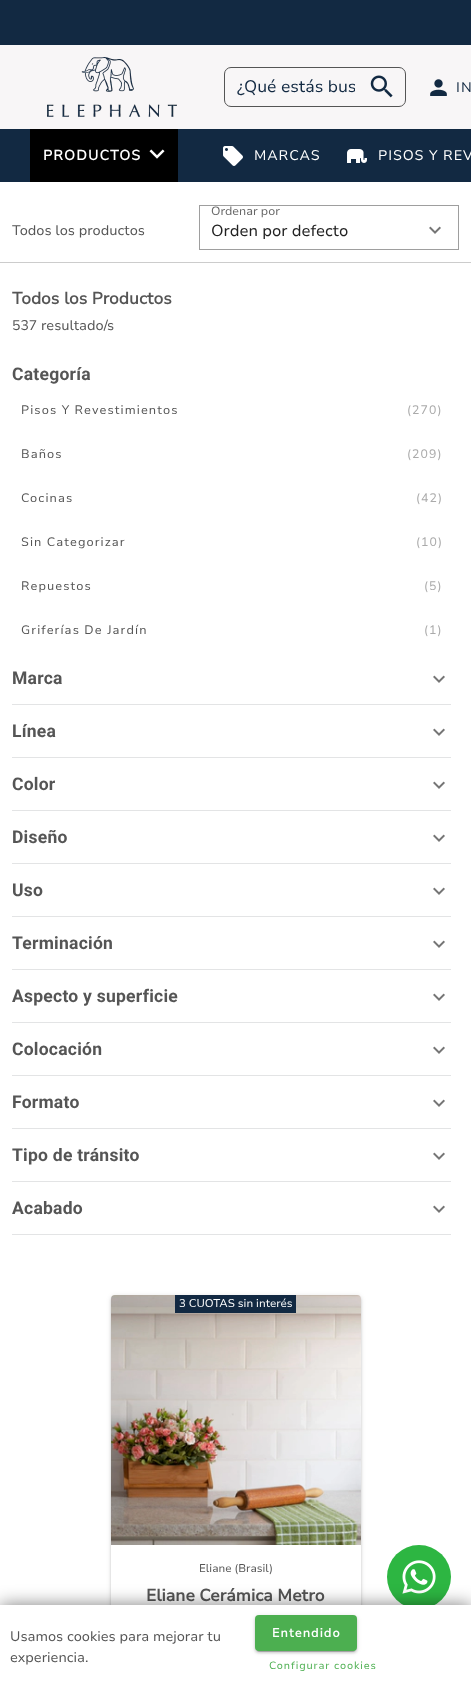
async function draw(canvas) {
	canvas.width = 471;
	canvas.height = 1689;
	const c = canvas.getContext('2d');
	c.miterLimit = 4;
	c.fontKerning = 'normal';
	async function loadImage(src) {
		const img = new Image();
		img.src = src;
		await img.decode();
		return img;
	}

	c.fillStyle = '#fff';
	c.fillRect(0, 0, 471, 1689);
	c.fillStyle = '#122942';
	c.fillRect(0, 0, 471, 45);
	c.fillStyle = '#f8f6f7';
	c.fillRect(0, 45, 471, 84);
	c.drawImage(await loadImage('img1.png'), 47, 57, 130, 60);
	c.beginPath();
	c.roundRect(224.5, 67.5, 181, 39, 6.5);
	c.strokeStyle = '#555';
	c.stroke();
	c.save();
	c.beginPath();
	c.rect(237, 75, 118, 23);
	c.clip();
	c.font = '16.75px Nunito Sans';
	c.fillStyle = '#122942';
	c.fillText('¿Qué estás bus', 237, 92);
	c.restore();
	c.drawImage(await loadImage('img2.png'), 370, 75, 23, 23);
	c.drawImage(await loadImage('img3.png'), 430, 79, 17, 17);
	c.letterSpacing = '1.1px';
	c.font = '14px Nunito Sans';
	c.fillStyle = '#122942';
	c.fillText('IN', 456, 92);
	c.fillRect(0, 129, 471, 53);
	c.fillStyle = '#000';
	c.fillRect(30, 129, 148, 53);
	c.font = 'bold 14px Nunito Sans';
	c.fillStyle = '#fff';
	c.fillText('PRODUCTOS', 43, 160);
	c.drawImage(await loadImage('img4.png'), 149, 149, 16, 10);
	c.drawImage(await loadImage('img5.png'), 223, 146, 20, 20);
	c.letterSpacing = '0.9px';
	c.font = '14px Nunito Sans';
	c.fillText('MARCAS', 254, 160);
	c.drawImage(await loadImage('img6.png'), 347, 149, 20, 14);
	c.fillText('PISOS Y REV', 378, 160);
	c.fillStyle = '#ccc';
	c.fillRect(0, 262, 471, 1);
	c.letterSpacing = '0px';
	c.fillStyle = '#555';
	c.fillText('Todos los productos', 12, 235);
	c.strokeStyle = '#9e9e9e';
	c.strokeRect(199.5, 205.5, 259, 44);
	c.font = '12px Nunito Sans';
	c.fillStyle = '#666';
	c.fillText('Ordenar por', 211, 215);
	c.font = '16px Nunito Sans';
	c.fillStyle = '#212121';
	c.fillText('Orden por defecto', 211, 236);
	c.drawImage(await loadImage('img7.png'), 429, 226, 12, 8);
	c.font = 'bold 16.75px Nunito Sans';
	c.fillStyle = '#555';
	c.fillText('Todos los Productos', 12, 304);
	c.font = '14px Nunito Sans';
	c.fillText('537 resultado/s', 12, 330);
	c.letterSpacing = '0.25px';
	c.font = 'bold 17.5px Roboto';
	c.fillText('Categoría', 12, 380);
	c.letterSpacing = '1.1px';
	c.font = '12.25px Nunito Sans';
	c.fillText('Pisos Y Revestimientos', 21, 414);
	c.fillStyle = '#aaa';
	c.fillText('(270)', 407, 414);
	c.fillStyle = '#555';
	c.fillText('Baños', 21, 458);
	c.fillStyle = '#aaa';
	c.fillText('(209)', 407, 458);
	c.fillStyle = '#555';
	c.fillText('Cocinas', 21, 502);
	c.fillStyle = '#aaa';
	c.fillText('(42)', 416, 502);
	c.fillStyle = '#555';
	c.fillText('Sin Categorizar', 21, 546);
	c.fillStyle = '#aaa';
	c.fillText('(10)', 416, 546);
	c.fillStyle = '#555';
	c.fillText('Repuestos', 21, 590);
	c.fillStyle = '#aaa';
	c.fillText('(5)', 424, 590);
	c.fillStyle = '#555';
	c.fillText('Griferías De Jardín', 21, 634);
	c.fillStyle = '#aaa';
	c.fillText('(1)', 424, 634);
	c.letterSpacing = '0.25px';
	c.font = 'bold 17.5px Roboto';
	c.fillStyle = '#555';
	c.fillText('Marca', 12, 684);
	c.drawImage(await loadImage('img7.png'), 433, 675, 12, 8);
	c.fillStyle = '#e3e4e5';
	c.fillRect(12, 704, 439, 1);
	c.fillStyle = '#555';
	c.fillText('Línea', 12, 737);
	c.drawImage(await loadImage('img7.png'), 433, 728, 12, 8);
	c.fillStyle = '#e3e4e5';
	c.fillRect(12, 757, 439, 1);
	c.fillStyle = '#555';
	c.fillText('Color', 12, 790);
	c.drawImage(await loadImage('img7.png'), 433, 781, 12, 8);
	c.fillStyle = '#e3e4e5';
	c.fillRect(12, 810, 439, 1);
	c.fillStyle = '#555';
	c.fillText('Diseño', 12, 843);
	c.drawImage(await loadImage('img7.png'), 433, 834, 12, 8);
	c.fillStyle = '#e3e4e5';
	c.fillRect(12, 863, 439, 1);
	c.fillStyle = '#555';
	c.fillText('Uso', 12, 896);
	c.drawImage(await loadImage('img7.png'), 433, 887, 12, 8);
	c.fillStyle = '#e3e4e5';
	c.fillRect(12, 916, 439, 1);
	c.fillStyle = '#555';
	c.fillText('Terminación', 12, 949);
	c.drawImage(await loadImage('img7.png'), 433, 940, 12, 8);
	c.fillStyle = '#e3e4e5';
	c.fillRect(12, 969, 439, 1);
	c.fillStyle = '#555';
	c.fillText('Aspecto y superficie', 12, 1002);
	c.drawImage(await loadImage('img7.png'), 433, 993, 12, 8);
	c.fillStyle = '#e3e4e5';
	c.fillRect(12, 1022, 439, 1);
	c.fillStyle = '#555';
	c.fillText('Colocación', 12, 1055);
	c.drawImage(await loadImage('img7.png'), 433, 1046, 12, 8);
	c.fillStyle = '#e3e4e5';
	c.fillRect(12, 1075, 439, 1);
	c.fillStyle = '#555';
	c.fillText('Formato', 12, 1108);
	c.drawImage(await loadImage('img7.png'), 433, 1099, 12, 8);
	c.fillStyle = '#e3e4e5';
	c.fillRect(12, 1128, 439, 1);
	c.fillStyle = '#555';
	c.fillText('Tipo de tránsito', 12, 1161);
	c.drawImage(await loadImage('img7.png'), 433, 1152, 12, 8);
	c.fillStyle = '#e3e4e5';
	c.fillRect(12, 1181, 439, 1);
	c.fillStyle = '#555';
	c.fillText('Acabado', 12, 1214);
	c.drawImage(await loadImage('img7.png'), 433, 1205, 12, 8);
	c.fillStyle = '#e3e4e5';
	c.fillRect(12, 1234, 439, 1);
	c.fillStyle = '#0000001f';
	c.filter = 'blur(2.5px)';
	c.beginPath();
	c.roundRect(111, 1296, 250, 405, 4);
	c.fill();
	c.filter = 'none';
	c.fillStyle = '#00000024';
	c.filter = 'blur(1px)';
	c.beginPath();
	c.roundRect(111, 1297, 250, 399, 4);
	c.fill();
	c.filter = 'none';
	c.fillStyle = '#fff';
	c.beginPath();
	c.roundRect(111, 1295, 250, 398, 4);
	c.fill();
	c.drawImage(await loadImage('img8.png'), 111, 1295, 250, 250);
	c.fillStyle = '#122942';
	c.fillRect(175, 1295, 121, 18);
	c.letterSpacing = '0px';
	c.font = '11.25px Nunito Sans';
	c.fillStyle = '#fff';
	c.fillText('3 CUOTAS sin interés', 179, 1307);
	c.fillStyle = '#555';
	c.fillText('Eliane (Brasil)', 199, 1572);
	c.font = 'bold 16.75px "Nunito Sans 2"';
	c.fillText('Eliane Cerámica Metro', 146, 1601);
	c.fillStyle = '#2db642';
	c.beginPath();
	c.arc(419, 1577, 32, 0, 2 * Math.PI);
	c.fill();
	c.drawImage(await loadImage('img9.png'), 402, 1560, 34, 34);
	c.fillStyle = '#00000080';
	c.filter = 'blur(9px)';
	c.beginPath();
	c.rect(0, 1605, 471, 84);
	c.fill();
	c.filter = 'none';
	c.fillStyle = '#fff';
	c.fillRect(0, 1605, 471, 84);
	c.font = '14px Nunito Sans';
	c.fillStyle = '#555';
	c.fillText('Usamos cookies para mejorar tu', 10, 1641);
	c.fillText('experiencia.', 10, 1662);
	c.fillStyle = '#0000001f';
	c.filter = 'blur(2.5px)';
	c.beginPath();
	c.roundRect(255, 1616, 102, 36, 4);
	c.fill();
	c.filter = 'none';
	c.fillStyle = '#00000024';
	c.filter = 'blur(1px)';
	c.beginPath();
	c.roundRect(255, 1617, 102, 36, 4);
	c.fill();
	c.filter = 'none';
	c.fillStyle = '#00000033';
	c.filter = 'blur(0.5px)';
	c.beginPath();
	c.roundRect(257, 1620, 98, 32, 2);
	c.fill();
	c.filter = 'none';
	c.fillStyle = '#4caf50';
	c.beginPath();
	c.roundRect(255, 1615, 102, 36, 4);
	c.fill();
	c.letterSpacing = '1.1px';
	c.font = 'bold 12.25px Nunito Sans';
	c.fillStyle = '#fff';
	c.fillText('Entendido', 272, 1637);
	c.letterSpacing = '0.9px';
	c.font = '10.5px Nunito Sans';
	c.fillStyle = '#4caf50';
	c.fillText('Configurar cookies', 269, 1669);
}

draw(document.querySelector('canvas'));
